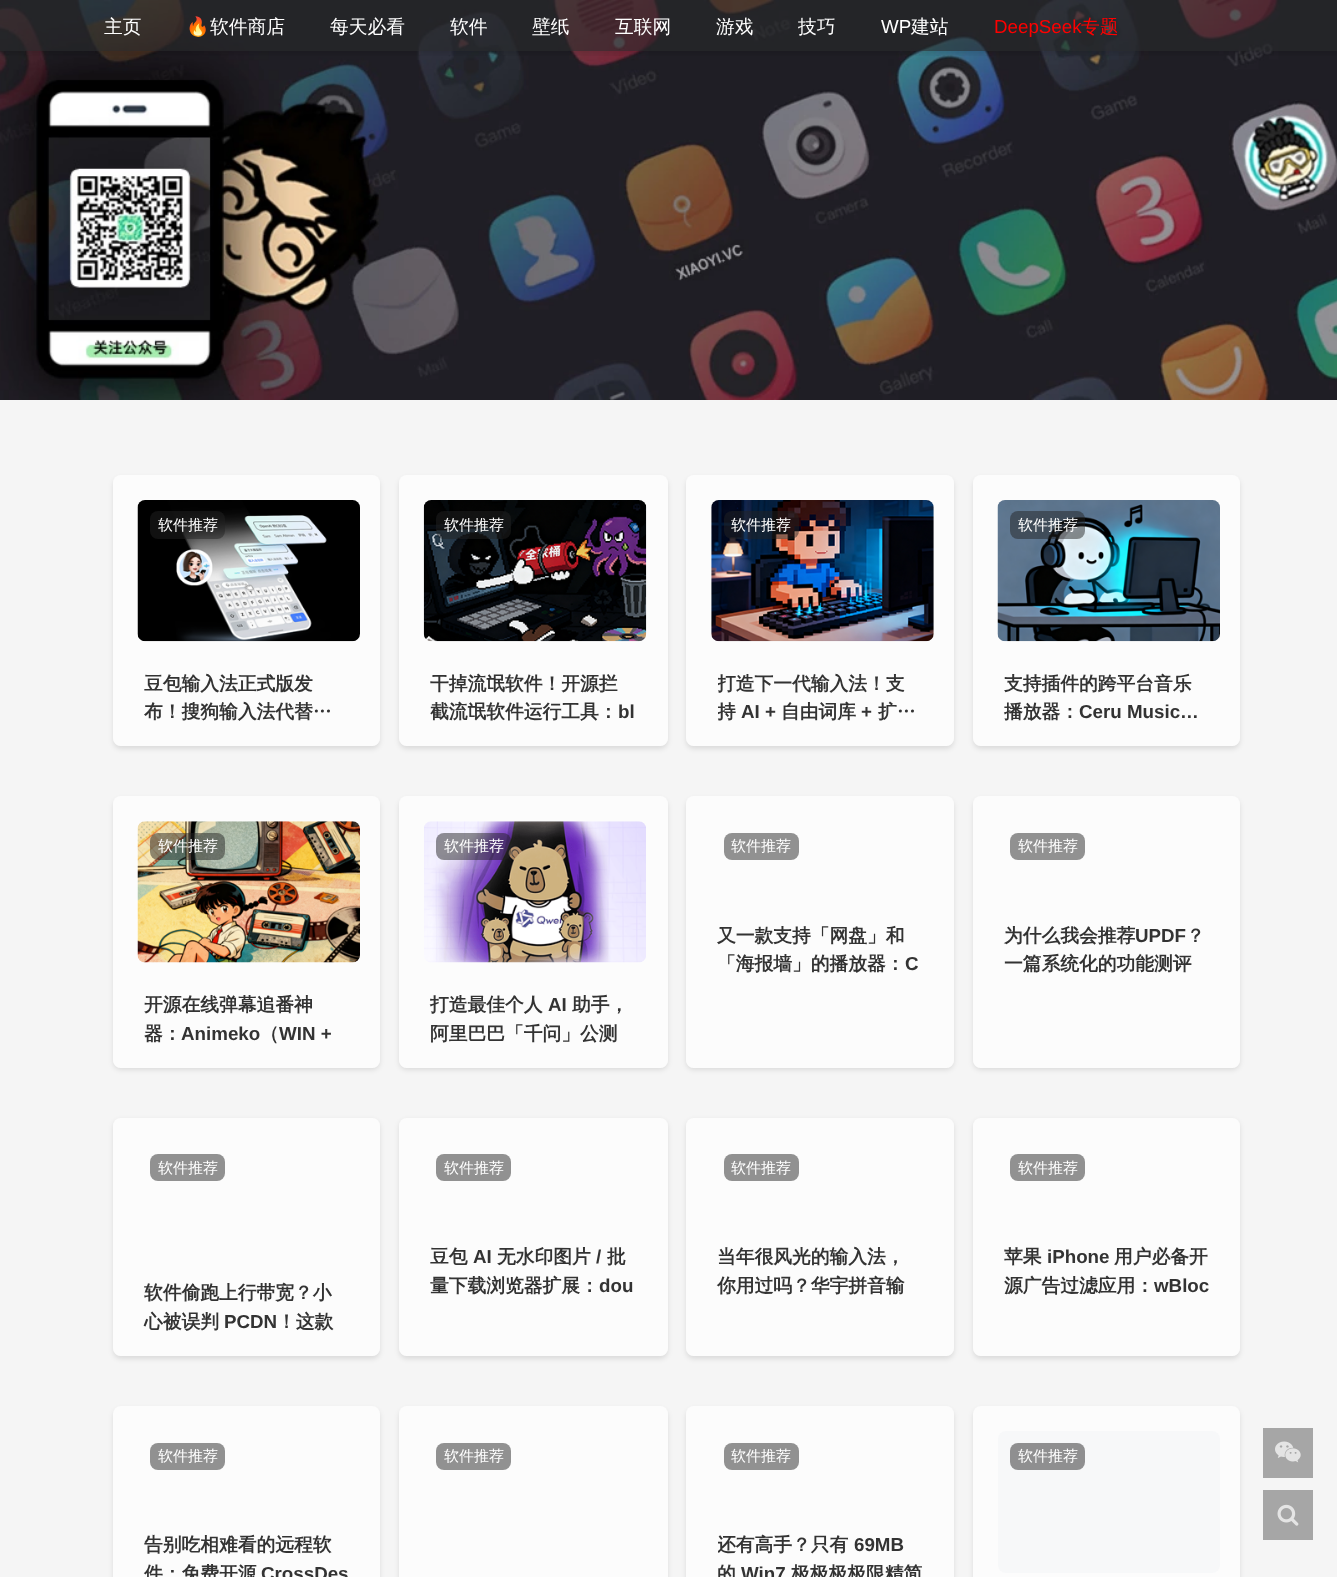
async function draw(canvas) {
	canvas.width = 1337;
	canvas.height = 1577;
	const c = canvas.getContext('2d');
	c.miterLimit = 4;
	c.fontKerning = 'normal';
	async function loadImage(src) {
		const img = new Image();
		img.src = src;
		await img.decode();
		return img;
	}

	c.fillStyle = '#f5f5f5';
	c.fillRect(0, 0, 1337, 1577);
	c.drawImage(await loadImage('img1.png'), 0, 0, 1337, 400);
	c.save();
	c.beginPath();
	c.rect(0, 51, 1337, 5);
	c.clip();
	c.fillStyle = '#0000001a';
	c.filter = 'blur(2.5px)';
	c.beginPath();
	c.rect(0, 3, 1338, 51);
	c.fill();
	c.filter = 'none';
	c.restore();
	c.fillStyle = '#282a2c99';
	c.fillRect(0, 0, 1337, 51);
	c.font = '500 18.75px WenQuanYi Zen Hei';
	c.fillStyle = '#fff';
	c.fillText('主页', 104, 33);
	c.font = '18.75px Noto Color Emoji';
	c.fillText('🔥', 186, 33);
	c.font = '500 18.75px WenQuanYi Zen Hei';
	for (const [text, x, y] of [
		['软件商店', 210, 33],
		['每天必看', 330, 33],
		['软件', 450, 33],
		['壁纸', 532, 33],
		['互联网', 615, 33],
		['游戏', 716, 33],
		['技巧', 798, 33],
	]) {
		c.fillText(text, x, y);
	}
	c.font = '18.75px Liberation Sans';
	c.fillText('WP', 881, 33);
	c.font = '500 18.75px WenQuanYi Zen Hei';
	c.fillText('建站', 911, 33);
	c.font = '18.75px Liberation Sans';
	c.fillStyle = '#f00';
	c.fillText('DeepSeek', 994, 33);
	c.font = '500 18.75px WenQuanYi Zen Hei';
	c.fillText('专题', 1081, 33);
	c.save();
	c.beginPath();
	c.moveTo(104, 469);
	c.lineTo(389, 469);
	c.lineTo(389, 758);
	c.lineTo(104, 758);
	c.closePath();
	c.moveTo(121, 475);
	c.lineTo(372, 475);
	c.bezierCurveTo(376.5, 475, 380, 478.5, 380, 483);
	c.lineTo(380, 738);
	c.bezierCurveTo(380, 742.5, 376.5, 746, 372, 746);
	c.lineTo(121, 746);
	c.bezierCurveTo(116.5, 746, 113, 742.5, 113, 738);
	c.lineTo(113, 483);
	c.bezierCurveTo(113, 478.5, 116.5, 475, 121, 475);
	c.closePath();
	c.clip('evenodd');
	c.fillStyle = '#0000001a';
	c.filter = 'blur(2.5px)';
	c.beginPath();
	c.roundRect(113, 478, 267, 271, 8);
	c.fill();
	c.filter = 'none';
	c.restore();
	c.fillStyle = '#fdfdfdd9';
	c.beginPath();
	c.roundRect(113, 475, 267, 271, 8);
	c.fill();
	c.drawImage(await loadImage('img2.png'), 137, 500, 223, 142);
	c.fillStyle = '#2222227d';
	c.beginPath();
	c.roundRect(150, 511, 75, 28, 8);
	c.fill();
	c.font = '500 15px WenQuanYi Zen Hei';
	c.fillStyle = '#fff';
	c.fillText('软件推荐', 158, 530);
	c.font = 'bold 18.75px WenQuanYi Zen Hei';
	c.fillStyle = '#333';
	c.fillText('豆包输入法正式版发', 144, 690);
	c.fillText('布！搜狗输入法代替…', 144, 718);
	c.save();
	c.beginPath();
	c.moveTo(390, 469);
	c.lineTo(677, 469);
	c.lineTo(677, 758);
	c.lineTo(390, 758);
	c.closePath();
	c.moveTo(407, 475);
	c.lineTo(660, 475);
	c.bezierCurveTo(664.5, 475, 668, 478.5, 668, 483);
	c.lineTo(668, 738);
	c.bezierCurveTo(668, 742.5, 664.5, 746, 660, 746);
	c.lineTo(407, 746);
	c.bezierCurveTo(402.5, 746, 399, 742.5, 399, 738);
	c.lineTo(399, 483);
	c.bezierCurveTo(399, 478.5, 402.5, 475, 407, 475);
	c.closePath();
	c.clip('evenodd');
	c.fillStyle = '#0000001a';
	c.filter = 'blur(2.5px)';
	c.beginPath();
	c.roundRect(399, 478, 269, 271, 8);
	c.fill();
	c.filter = 'none';
	c.restore();
	c.fillStyle = '#fdfdfdd9';
	c.beginPath();
	c.roundRect(399, 475, 269, 271, 8);
	c.fill();
	c.drawImage(await loadImage('img3.png'), 423, 500, 224, 142);
	c.fillStyle = '#2222227d';
	c.beginPath();
	c.roundRect(436, 511, 75, 28, 8);
	c.fill();
	c.font = '500 15px WenQuanYi Zen Hei';
	c.fillStyle = '#fff';
	c.fillText('软件推荐', 444, 530);
	c.font = 'bold 18.75px WenQuanYi Zen Hei';
	c.fillStyle = '#333';
	c.fillText('干掉流氓软件！开源拦', 430, 690);
	c.fillText('截流氓软件运行工具：', 430, 718);
	c.font = 'bold 18.75px Liberation Sans';
	c.fillText('bl', 618, 718);
	c.save();
	c.beginPath();
	c.moveTo(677, 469);
	c.lineTo(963, 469);
	c.lineTo(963, 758);
	c.lineTo(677, 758);
	c.closePath();
	c.moveTo(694, 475);
	c.lineTo(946, 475);
	c.bezierCurveTo(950.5, 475, 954, 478.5, 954, 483);
	c.lineTo(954, 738);
	c.bezierCurveTo(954, 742.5, 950.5, 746, 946, 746);
	c.lineTo(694, 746);
	c.bezierCurveTo(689.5, 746, 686, 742.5, 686, 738);
	c.lineTo(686, 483);
	c.bezierCurveTo(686, 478.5, 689.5, 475, 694, 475);
	c.closePath();
	c.clip('evenodd');
	c.fillStyle = '#0000001a';
	c.filter = 'blur(2.5px)';
	c.beginPath();
	c.roundRect(686, 478, 268, 271, 8);
	c.fill();
	c.filter = 'none';
	c.restore();
	c.fillStyle = '#fdfdfdd9';
	c.beginPath();
	c.roundRect(686, 475, 268, 271, 8);
	c.fill();
	c.drawImage(await loadImage('img4.png'), 711, 500, 223, 142);
	c.fillStyle = '#2222227d';
	c.beginPath();
	c.roundRect(724, 511, 75, 28, 8);
	c.fill();
	c.font = '500 15px WenQuanYi Zen Hei';
	c.fillStyle = '#fff';
	c.fillText('软件推荐', 731, 530);
	c.save();
	c.beginPath();
	c.rect(718, 670, 205, 56);
	c.clip();
	c.font = 'bold 18.75px WenQuanYi Zen Hei';
	c.fillStyle = '#333';
	c.fillText('打造下一代输入法！支', 717, 690);
	c.fillText('持', 717, 718);
	c.restore();
	c.font = 'bold 18.75px Liberation Sans';
	c.fillStyle = '#333';
	c.fillText('AI +', 741, 718);
	c.font = 'bold 18.75px WenQuanYi Zen Hei';
	c.fillText('自由词库', 781, 718);
	c.font = 'bold 18.75px Liberation Sans';
	c.fillText('+', 861, 718);
	c.font = 'bold 18.75px WenQuanYi Zen Hei';
	c.fillText('扩…', 878, 718);
	c.save();
	c.beginPath();
	c.moveTo(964, 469);
	c.lineTo(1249, 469);
	c.lineTo(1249, 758);
	c.lineTo(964, 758);
	c.closePath();
	c.moveTo(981, 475);
	c.lineTo(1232, 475);
	c.bezierCurveTo(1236.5, 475, 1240, 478.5, 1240, 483);
	c.lineTo(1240, 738);
	c.bezierCurveTo(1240, 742.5, 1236.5, 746, 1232, 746);
	c.lineTo(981, 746);
	c.bezierCurveTo(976.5, 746, 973, 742.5, 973, 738);
	c.lineTo(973, 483);
	c.bezierCurveTo(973, 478.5, 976.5, 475, 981, 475);
	c.closePath();
	c.clip('evenodd');
	c.fillStyle = '#0000001a';
	c.filter = 'blur(2.5px)';
	c.beginPath();
	c.roundRect(973, 478, 267, 271, 8);
	c.fill();
	c.filter = 'none';
	c.restore();
	c.fillStyle = '#fdfdfdd9';
	c.beginPath();
	c.roundRect(973, 475, 267, 271, 8);
	c.fill();
	c.drawImage(await loadImage('img5.png'), 997, 500, 223, 142);
	c.fillStyle = '#2222227d';
	c.beginPath();
	c.roundRect(1010, 511, 75, 28, 8);
	c.fill();
	c.font = '500 15px WenQuanYi Zen Hei';
	c.fillStyle = '#fff';
	c.fillText('软件推荐', 1018, 530);
	c.font = 'bold 18.75px WenQuanYi Zen Hei';
	c.fillStyle = '#333';
	c.fillText('支持插件的跨平台音乐', 1004, 690);
	c.fillText('播放器：', 1004, 718);
	c.font = 'bold 18.75px Liberation Sans';
	c.fillText('Ceru Music…', 1079, 718);
	c.save();
	c.beginPath();
	c.moveTo(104, 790);
	c.lineTo(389, 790);
	c.lineTo(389, 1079);
	c.lineTo(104, 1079);
	c.closePath();
	c.moveTo(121, 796);
	c.lineTo(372, 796);
	c.bezierCurveTo(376.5, 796, 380, 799.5, 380, 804);
	c.lineTo(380, 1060);
	c.bezierCurveTo(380, 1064.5, 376.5, 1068, 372, 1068);
	c.lineTo(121, 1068);
	c.bezierCurveTo(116.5, 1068, 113, 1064.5, 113, 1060);
	c.lineTo(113, 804);
	c.bezierCurveTo(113, 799.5, 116.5, 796, 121, 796);
	c.closePath();
	c.clip('evenodd');
	c.fillStyle = '#0000001a';
	c.filter = 'blur(2.5px)';
	c.beginPath();
	c.roundRect(113, 799, 267, 271, 8);
	c.fill();
	c.filter = 'none';
	c.restore();
	c.fillStyle = '#fdfdfdd9';
	c.beginPath();
	c.roundRect(113, 796, 267, 272, 8);
	c.fill();
	c.drawImage(await loadImage('img6.png'), 137, 821, 223, 142);
	c.fillStyle = '#2222227d';
	c.beginPath();
	c.roundRect(150, 833, 75, 27, 8);
	c.fill();
	c.font = '500 15px WenQuanYi Zen Hei';
	c.fillStyle = '#fff';
	c.fillText('软件推荐', 158, 851);
	c.font = 'bold 18.75px WenQuanYi Zen Hei';
	c.fillStyle = '#333';
	c.fillText('开源在线弹幕追番神', 144, 1011);
	c.fillText('器：', 144, 1040);
	c.font = 'bold 18.75px Liberation Sans';
	c.fillText('Animeko', 181, 1040);
	c.font = 'bold 18.75px WenQuanYi Zen Hei';
	c.fillText('（', 260, 1040);
	c.font = 'bold 18.75px Liberation Sans';
	c.fillText('WIN +', 279, 1040);
	c.save();
	c.beginPath();
	c.moveTo(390, 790);
	c.lineTo(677, 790);
	c.lineTo(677, 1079);
	c.lineTo(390, 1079);
	c.closePath();
	c.moveTo(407, 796);
	c.lineTo(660, 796);
	c.bezierCurveTo(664.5, 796, 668, 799.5, 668, 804);
	c.lineTo(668, 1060);
	c.bezierCurveTo(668, 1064.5, 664.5, 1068, 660, 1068);
	c.lineTo(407, 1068);
	c.bezierCurveTo(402.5, 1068, 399, 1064.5, 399, 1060);
	c.lineTo(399, 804);
	c.bezierCurveTo(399, 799.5, 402.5, 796, 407, 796);
	c.closePath();
	c.clip('evenodd');
	c.fillStyle = '#0000001a';
	c.filter = 'blur(2.5px)';
	c.beginPath();
	c.roundRect(399, 799, 269, 271, 8);
	c.fill();
	c.filter = 'none';
	c.restore();
	c.fillStyle = '#fdfdfdd9';
	c.beginPath();
	c.roundRect(399, 796, 269, 272, 8);
	c.fill();
	c.drawImage(await loadImage('img7.png'), 424, 821, 222, 142);
	c.fillStyle = '#2222227d';
	c.beginPath();
	c.roundRect(436, 833, 75, 27, 8);
	c.fill();
	c.font = '500 15px WenQuanYi Zen Hei';
	c.fillStyle = '#fff';
	c.fillText('软件推荐', 444, 851);
	c.font = 'bold 18.75px WenQuanYi Zen Hei';
	c.fillStyle = '#333';
	c.fillText('打造最佳个人', 430, 1011);
	c.font = 'bold 18.75px Liberation Sans';
	c.fillText('AI', 548, 1011);
	c.font = 'bold 18.75px WenQuanYi Zen Hei';
	c.fillText('助手，', 572, 1011);
	c.fillText('阿里巴巴「千问」公测', 430, 1040);
	c.save();
	c.beginPath();
	c.moveTo(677, 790);
	c.lineTo(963, 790);
	c.lineTo(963, 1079);
	c.lineTo(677, 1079);
	c.closePath();
	c.moveTo(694, 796);
	c.lineTo(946, 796);
	c.bezierCurveTo(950.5, 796, 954, 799.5, 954, 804);
	c.lineTo(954, 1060);
	c.bezierCurveTo(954, 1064.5, 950.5, 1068, 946, 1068);
	c.lineTo(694, 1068);
	c.bezierCurveTo(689.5, 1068, 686, 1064.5, 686, 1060);
	c.lineTo(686, 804);
	c.bezierCurveTo(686, 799.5, 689.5, 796, 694, 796);
	c.closePath();
	c.clip('evenodd');
	c.fillStyle = '#0000001a';
	c.filter = 'blur(2.5px)';
	c.beginPath();
	c.roundRect(686, 799, 268, 271, 8);
	c.fill();
	c.filter = 'none';
	c.restore();
	c.fillStyle = '#fdfdfdd9';
	c.beginPath();
	c.roundRect(686, 796, 268, 272, 8);
	c.fill();
	c.fillStyle = '#919191';
	c.beginPath();
	c.roundRect(724, 833, 75, 27, 8);
	c.fill();
	c.font = '500 15px WenQuanYi Zen Hei';
	c.fillStyle = '#fff';
	c.fillText('软件推荐', 731, 851);
	c.font = 'bold 18.75px WenQuanYi Zen Hei';
	c.fillStyle = '#333';
	c.fillText('又一款支持「网盘」和', 717, 942);
	c.fillText('「海报墙」的播放器：', 717, 970);
	c.font = 'bold 18.75px Liberation Sans';
	c.fillText('C', 905, 970);
	c.save();
	c.beginPath();
	c.moveTo(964, 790);
	c.lineTo(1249, 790);
	c.lineTo(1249, 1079);
	c.lineTo(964, 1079);
	c.closePath();
	c.moveTo(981, 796);
	c.lineTo(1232, 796);
	c.bezierCurveTo(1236.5, 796, 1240, 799.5, 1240, 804);
	c.lineTo(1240, 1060);
	c.bezierCurveTo(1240, 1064.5, 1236.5, 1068, 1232, 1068);
	c.lineTo(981, 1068);
	c.bezierCurveTo(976.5, 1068, 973, 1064.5, 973, 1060);
	c.lineTo(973, 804);
	c.bezierCurveTo(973, 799.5, 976.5, 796, 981, 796);
	c.closePath();
	c.clip('evenodd');
	c.fillStyle = '#0000001a';
	c.filter = 'blur(2.5px)';
	c.beginPath();
	c.roundRect(973, 799, 267, 271, 8);
	c.fill();
	c.filter = 'none';
	c.restore();
	c.fillStyle = '#fdfdfdd9';
	c.beginPath();
	c.roundRect(973, 796, 267, 272, 8);
	c.fill();
	c.fillStyle = '#919191';
	c.beginPath();
	c.roundRect(1010, 833, 75, 27, 8);
	c.fill();
	c.font = '500 15px WenQuanYi Zen Hei';
	c.fillStyle = '#fff';
	c.fillText('软件推荐', 1018, 851);
	c.font = 'bold 18.75px WenQuanYi Zen Hei';
	c.fillStyle = '#333';
	c.fillText('为什么我会推荐', 1004, 942);
	c.font = 'bold 18.75px Liberation Sans';
	c.fillText('UPDF', 1135, 942);
	c.font = 'bold 18.75px WenQuanYi Zen Hei';
	c.fillText('？', 1186, 942);
	c.fillText('一篇系统化的功能测评', 1004, 970);
	c.save();
	c.beginPath();
	c.moveTo(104, 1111);
	c.lineTo(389, 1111);
	c.lineTo(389, 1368);
	c.lineTo(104, 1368);
	c.closePath();
	c.moveTo(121, 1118);
	c.lineTo(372, 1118);
	c.bezierCurveTo(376.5, 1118, 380, 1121.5, 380, 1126);
	c.lineTo(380, 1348);
	c.bezierCurveTo(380, 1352.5, 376.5, 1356, 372, 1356);
	c.lineTo(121, 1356);
	c.bezierCurveTo(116.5, 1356, 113, 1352.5, 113, 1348);
	c.lineTo(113, 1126);
	c.bezierCurveTo(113, 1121.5, 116.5, 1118, 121, 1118);
	c.closePath();
	c.clip('evenodd');
	c.fillStyle = '#0000001a';
	c.filter = 'blur(2.5px)';
	c.beginPath();
	c.roundRect(113, 1120, 267, 239, 8);
	c.fill();
	c.filter = 'none';
	c.restore();
	c.fillStyle = '#fdfdfdd9';
	c.beginPath();
	c.roundRect(113, 1118, 267, 238, 8);
	c.fill();
	c.fillStyle = '#919191';
	c.beginPath();
	c.roundRect(150, 1154, 75, 27, 8);
	c.fill();
	c.font = '500 15px WenQuanYi Zen Hei';
	c.fillStyle = '#fff';
	c.fillText('软件推荐', 158, 1173);
	c.font = 'bold 18.75px WenQuanYi Zen Hei';
	c.fillStyle = '#333';
	c.fillText('软件偷跑上行带宽？小', 144, 1299);
	c.fillText('心被误判', 144, 1328);
	c.font = 'bold 18.75px Liberation Sans';
	c.fillText('PCDN', 224, 1328);
	c.font = 'bold 18.75px WenQuanYi Zen Hei';
	c.fillText('！这款', 277, 1328);
	c.save();
	c.beginPath();
	c.moveTo(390, 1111);
	c.lineTo(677, 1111);
	c.lineTo(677, 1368);
	c.lineTo(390, 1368);
	c.closePath();
	c.moveTo(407, 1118);
	c.lineTo(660, 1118);
	c.bezierCurveTo(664.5, 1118, 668, 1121.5, 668, 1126);
	c.lineTo(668, 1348);
	c.bezierCurveTo(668, 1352.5, 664.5, 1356, 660, 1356);
	c.lineTo(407, 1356);
	c.bezierCurveTo(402.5, 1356, 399, 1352.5, 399, 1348);
	c.lineTo(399, 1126);
	c.bezierCurveTo(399, 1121.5, 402.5, 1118, 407, 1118);
	c.closePath();
	c.clip('evenodd');
	c.fillStyle = '#0000001a';
	c.filter = 'blur(2.5px)';
	c.beginPath();
	c.roundRect(399, 1120, 269, 239, 8);
	c.fill();
	c.filter = 'none';
	c.restore();
	c.fillStyle = '#fdfdfdd9';
	c.beginPath();
	c.roundRect(399, 1118, 269, 238, 8);
	c.fill();
	c.fillStyle = '#919191';
	c.beginPath();
	c.roundRect(436, 1154, 75, 27, 8);
	c.fill();
	c.font = '500 15px WenQuanYi Zen Hei';
	c.fillStyle = '#fff';
	c.fillText('软件推荐', 444, 1173);
	c.font = 'bold 18.75px WenQuanYi Zen Hei';
	c.fillStyle = '#333';
	c.fillText('豆包', 430, 1263);
	c.font = 'bold 18.75px Liberation Sans';
	c.fillText('AI', 473, 1263);
	c.font = 'bold 18.75px WenQuanYi Zen Hei';
	c.fillText('无水印图片', 497, 1263);
	c.font = 'bold 18.75px Liberation Sans';
	c.fillText('/', 596, 1263);
	c.font = 'bold 18.75px WenQuanYi Zen Hei';
	c.fillText('批', 607, 1263);
	c.fillText('量下载浏览器扩展：', 430, 1292);
	c.font = 'bold 18.75px Liberation Sans';
	c.fillText('dou', 599, 1292);
	c.save();
	c.beginPath();
	c.moveTo(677, 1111);
	c.lineTo(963, 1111);
	c.lineTo(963, 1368);
	c.lineTo(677, 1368);
	c.closePath();
	c.moveTo(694, 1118);
	c.lineTo(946, 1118);
	c.bezierCurveTo(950.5, 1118, 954, 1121.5, 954, 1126);
	c.lineTo(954, 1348);
	c.bezierCurveTo(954, 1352.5, 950.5, 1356, 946, 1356);
	c.lineTo(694, 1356);
	c.bezierCurveTo(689.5, 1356, 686, 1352.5, 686, 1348);
	c.lineTo(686, 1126);
	c.bezierCurveTo(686, 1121.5, 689.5, 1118, 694, 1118);
	c.closePath();
	c.clip('evenodd');
	c.fillStyle = '#0000001a';
	c.filter = 'blur(2.5px)';
	c.beginPath();
	c.roundRect(686, 1120, 268, 239, 8);
	c.fill();
	c.filter = 'none';
	c.restore();
	c.fillStyle = '#fdfdfdd9';
	c.beginPath();
	c.roundRect(686, 1118, 268, 238, 8);
	c.fill();
	c.fillStyle = '#919191';
	c.beginPath();
	c.roundRect(724, 1154, 75, 27, 8);
	c.fill();
	c.font = '500 15px WenQuanYi Zen Hei';
	c.fillStyle = '#fff';
	c.fillText('软件推荐', 731, 1173);
	c.font = 'bold 18.75px WenQuanYi Zen Hei';
	c.fillStyle = '#333';
	c.fillText('当年很风光的输入法，', 717, 1263);
	c.fillText('你用过吗？华宇拼音输', 717, 1292);
	c.save();
	c.beginPath();
	c.moveTo(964, 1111);
	c.lineTo(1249, 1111);
	c.lineTo(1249, 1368);
	c.lineTo(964, 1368);
	c.closePath();
	c.moveTo(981, 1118);
	c.lineTo(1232, 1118);
	c.bezierCurveTo(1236.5, 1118, 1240, 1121.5, 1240, 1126);
	c.lineTo(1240, 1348);
	c.bezierCurveTo(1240, 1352.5, 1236.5, 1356, 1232, 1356);
	c.lineTo(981, 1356);
	c.bezierCurveTo(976.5, 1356, 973, 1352.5, 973, 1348);
	c.lineTo(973, 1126);
	c.bezierCurveTo(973, 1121.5, 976.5, 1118, 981, 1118);
	c.closePath();
	c.clip('evenodd');
	c.fillStyle = '#0000001a';
	c.filter = 'blur(2.5px)';
	c.beginPath();
	c.roundRect(973, 1120, 267, 239, 8);
	c.fill();
	c.filter = 'none';
	c.restore();
	c.fillStyle = '#fdfdfdd9';
	c.beginPath();
	c.roundRect(973, 1118, 267, 238, 8);
	c.fill();
	c.fillStyle = '#919191';
	c.beginPath();
	c.roundRect(1010, 1154, 75, 27, 8);
	c.fill();
	c.font = '500 15px WenQuanYi Zen Hei';
	c.fillStyle = '#fff';
	c.fillText('软件推荐', 1018, 1173);
	c.font = 'bold 18.75px WenQuanYi Zen Hei';
	c.fillStyle = '#333';
	c.fillText('苹果', 1004, 1263);
	c.font = 'bold 18.75px Liberation Sans';
	c.fillText('iPhone', 1047, 1263);
	c.font = 'bold 18.75px WenQuanYi Zen Hei';
	c.fillText('用户必备开', 1114, 1263);
	c.fillText('源广告过滤应用：', 1004, 1292);
	c.font = 'bold 18.75px Liberation Sans';
	c.fillText('wBloc', 1154, 1292);
	c.fillStyle = '#0000001a';
	c.filter = 'blur(2.5px)';
	c.beginPath();
	c.roundRect(113, 1409, 267, 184, 8);
	c.fill();
	c.filter = 'none';
	c.fillStyle = '#fcfcfc';
	c.beginPath();
	c.roundRect(113, 1406, 267, 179, 8);
	c.fill();
	c.fillStyle = '#919191';
	c.beginPath();
	c.roundRect(150, 1443, 75, 27, 8);
	c.fill();
	c.font = '500 15px WenQuanYi Zen Hei';
	c.fillStyle = '#fff';
	c.fillText('软件推荐', 158, 1461);
	c.font = 'bold 18.75px WenQuanYi Zen Hei';
	c.fillStyle = '#333';
	c.fillText('告别吃相难看的远程软', 144, 1551);
	c.fillText('件：免费开源', 144, 1580);
	c.font = 'bold 18.75px Liberation Sans';
	c.fillText('CrossDes', 261, 1580);
	c.save();
	c.beginPath();
	c.moveTo(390, 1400);
	c.lineTo(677, 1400);
	c.lineTo(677, 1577);
	c.lineTo(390, 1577);
	c.closePath();
	c.moveTo(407, 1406);
	c.lineTo(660, 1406);
	c.bezierCurveTo(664.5, 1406, 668, 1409.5, 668, 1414);
	c.lineTo(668, 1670);
	c.bezierCurveTo(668, 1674.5, 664.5, 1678, 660, 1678);
	c.lineTo(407, 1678);
	c.bezierCurveTo(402.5, 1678, 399, 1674.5, 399, 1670);
	c.lineTo(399, 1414);
	c.bezierCurveTo(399, 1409.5, 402.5, 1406, 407, 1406);
	c.closePath();
	c.clip('evenodd');
	c.fillStyle = '#0000001a';
	c.filter = 'blur(2.5px)';
	c.beginPath();
	c.roundRect(399, 1409, 269, 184, 8);
	c.fill();
	c.filter = 'none';
	c.restore();
	c.fillStyle = '#fdfdfdd9';
	c.beginPath();
	c.roundRect(399, 1406, 269, 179, 8);
	c.fill();
	c.fillStyle = '#919191';
	c.beginPath();
	c.roundRect(436, 1443, 75, 27, 8);
	c.fill();
	c.font = '500 15px WenQuanYi Zen Hei';
	c.fillStyle = '#fff';
	c.fillText('软件推荐', 444, 1461);
	c.save();
	c.beginPath();
	c.moveTo(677, 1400);
	c.lineTo(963, 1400);
	c.lineTo(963, 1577);
	c.lineTo(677, 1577);
	c.closePath();
	c.moveTo(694, 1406);
	c.lineTo(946, 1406);
	c.bezierCurveTo(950.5, 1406, 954, 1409.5, 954, 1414);
	c.lineTo(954, 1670);
	c.bezierCurveTo(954, 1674.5, 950.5, 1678, 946, 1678);
	c.lineTo(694, 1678);
	c.bezierCurveTo(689.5, 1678, 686, 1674.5, 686, 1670);
	c.lineTo(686, 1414);
	c.bezierCurveTo(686, 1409.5, 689.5, 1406, 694, 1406);
	c.closePath();
	c.clip('evenodd');
	c.fillStyle = '#0000001a';
	c.filter = 'blur(2.5px)';
	c.beginPath();
	c.roundRect(686, 1409, 268, 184, 8);
	c.fill();
	c.filter = 'none';
	c.restore();
	c.fillStyle = '#fdfdfdd9';
	c.beginPath();
	c.roundRect(686, 1406, 268, 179, 8);
	c.fill();
	c.fillStyle = '#919191';
	c.beginPath();
	c.roundRect(724, 1443, 75, 27, 8);
	c.fill();
	c.fillStyle = '#fff';
	c.fillText('软件推荐', 731, 1461);
	c.save();
	c.beginPath();
	c.rect(718, 1531, 205, 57);
	c.clip();
	c.font = 'bold 18.75px WenQuanYi Zen Hei';
	c.fillStyle = '#333';
	c.fillText('还有高手？只有', 717, 1551);
	c.restore();
	c.font = 'bold 18.75px Liberation Sans';
	c.fillStyle = '#333';
	c.fillText('69MB', 854, 1551);
	c.font = 'bold 18.75px WenQuanYi Zen Hei';
	c.fillText('的', 717, 1580);
	c.font = 'bold 18.75px Liberation Sans';
	c.fillText('Win7', 741, 1580);
	c.font = 'bold 18.75px WenQuanYi Zen Hei';
	c.fillText('极极极极限精简', 791, 1580);
	c.fillStyle = '#0000001a';
	c.filter = 'blur(2.5px)';
	c.beginPath();
	c.roundRect(973, 1409, 267, 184, 8);
	c.fill();
	c.filter = 'none';
	c.fillStyle = '#fcfcfc';
	c.beginPath();
	c.roundRect(973, 1406, 267, 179, 8);
	c.fill();
	c.fillStyle = '#f7f8f9';
	c.beginPath();
	c.roundRect(998, 1431, 222, 142, 8);
	c.fill();
	c.fillStyle = '#8f8f90';
	c.beginPath();
	c.roundRect(1010, 1443, 75, 27, 8);
	c.fill();
	c.font = '500 15px WenQuanYi Zen Hei';
	c.fillStyle = '#fff';
	c.fillText('软件推荐', 1018, 1461);
	c.fillStyle = '#a6a6a6';
	c.fillRect(1263, 1428, 50, 50);
	c.drawImage(await loadImage('img8.png'), 1275, 1441, 26, 22);
	c.fillRect(1263, 1490, 50, 50);
	c.drawImage(await loadImage('img9.png'), 1277, 1504, 22, 22);
}

draw(document.querySelector('canvas'));
